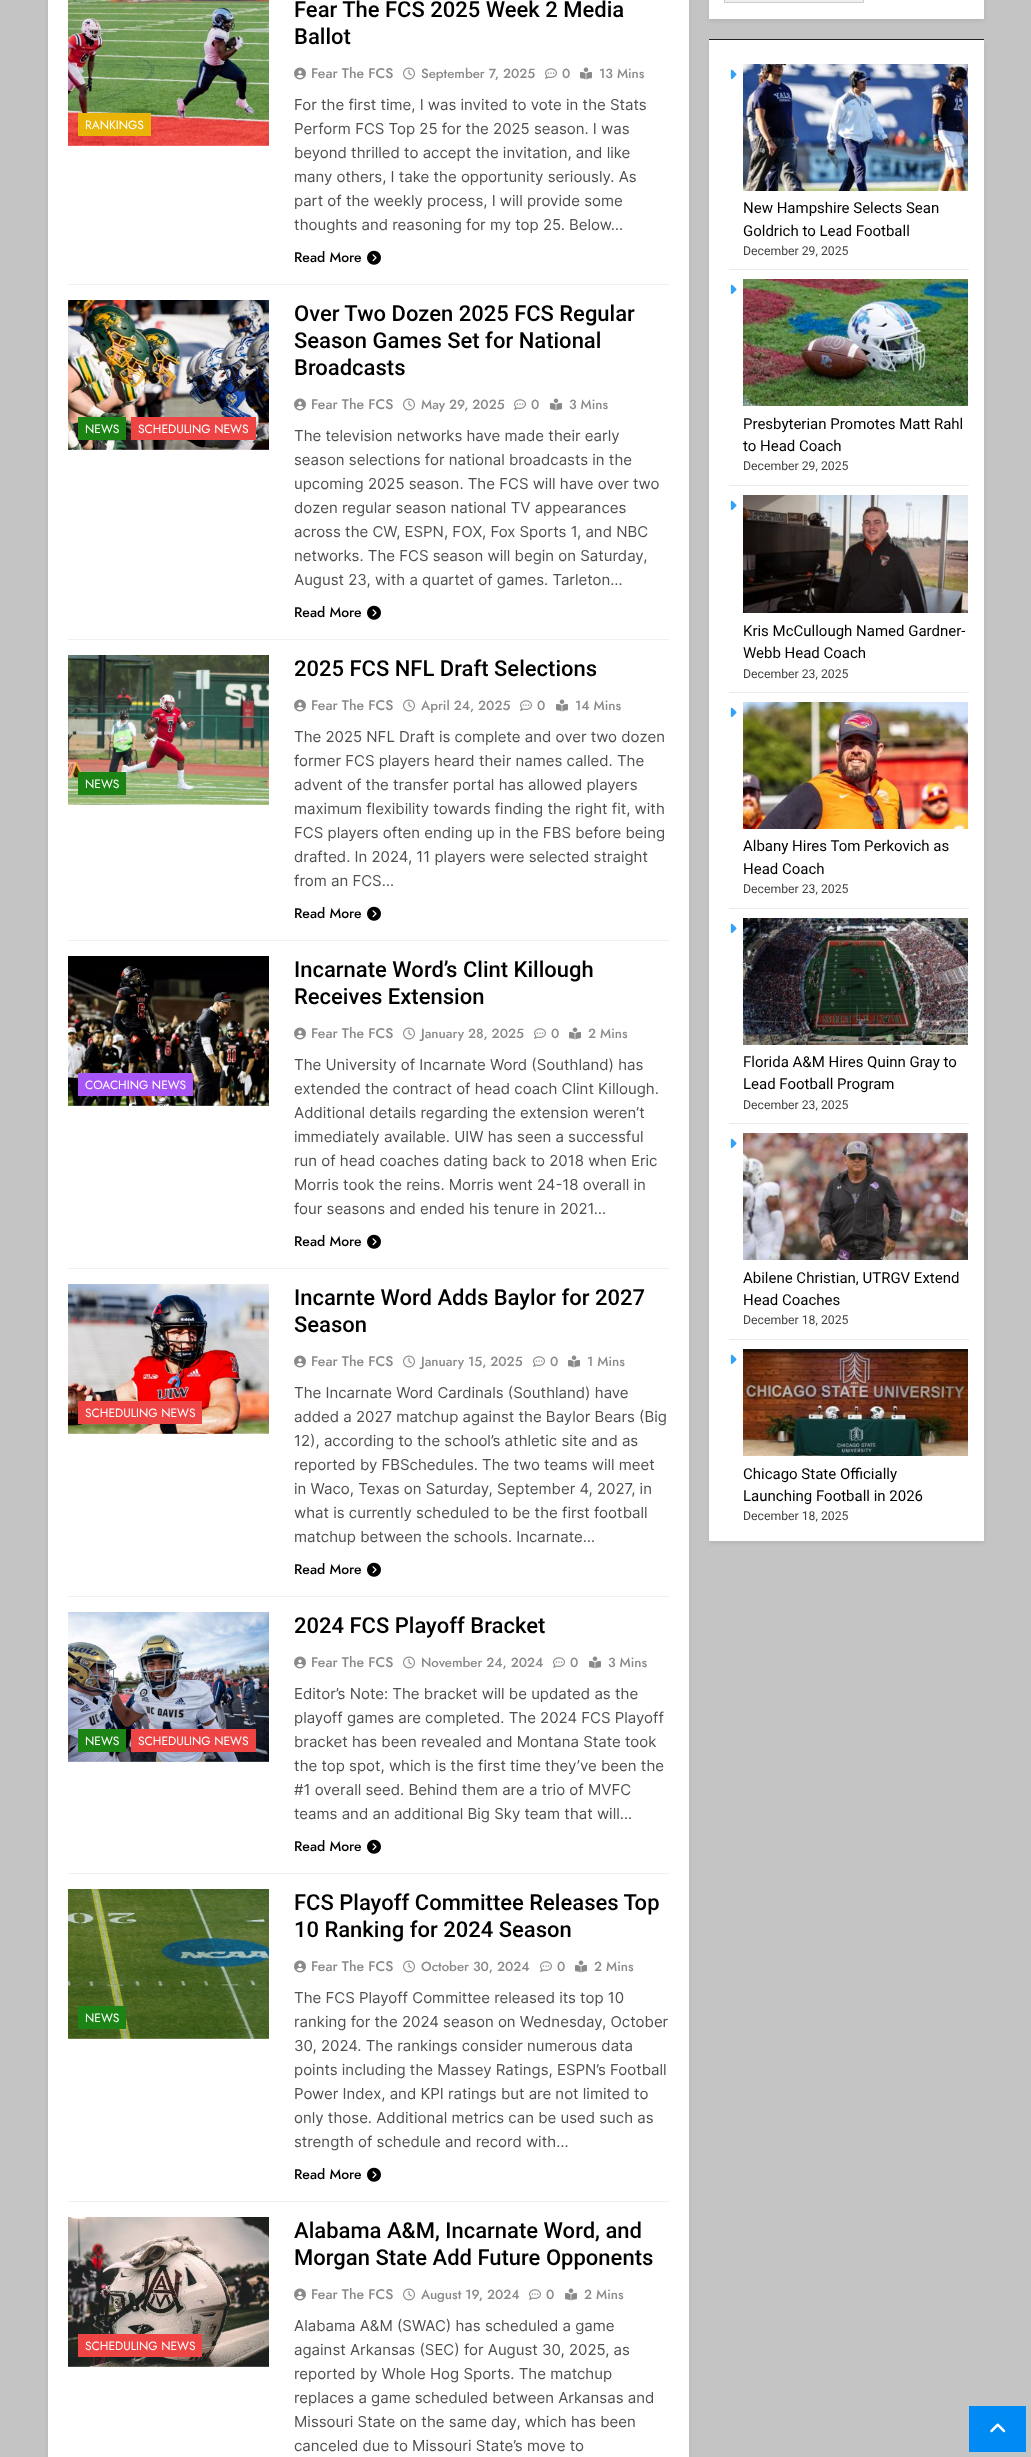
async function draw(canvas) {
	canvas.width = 1031;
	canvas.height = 2457;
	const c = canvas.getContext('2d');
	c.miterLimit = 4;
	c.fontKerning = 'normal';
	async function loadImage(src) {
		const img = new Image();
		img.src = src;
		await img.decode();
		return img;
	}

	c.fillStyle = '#c4c4c4';
	c.fillRect(0, 0, 1031, 2457);
	c.fillStyle = '#00000014';
	c.filter = 'blur(2px)';
	c.beginPath();
	c.rect(48, -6, 641, 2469);
	c.fill();
	c.filter = 'none';
	c.fillStyle = '#fff';
	c.fillRect(48, 0, 641, 2457);
	c.fillStyle = '#f0f0f0';
	c.fillRect(68, 284, 601, 1);
	c.drawImage(await loadImage('img1.png'), 68, 0, 201, 146);
	c.fillStyle = '#eab308';
	c.fillRect(78, 113, 73, 23);
	c.font = '12px Jost';
	c.fillStyle = '#fff';
	c.fillText('RANKINGS', 85, 129);
	c.font = '500 22px Roboto';
	c.fillStyle = '#000';
	c.fillText('Fear The FCS 2025 Week 2 Media', 294, 17);
	c.fillText('Ballot', 294, 44);
	c.drawImage(await loadImage('img2.png'), 294, 67, 12, 13);
	c.font = '500 14px Jost';
	c.fillStyle = '#8a8a8c';
	c.fillText('Fear The FCS', 311, 78);
	c.drawImage(await loadImage('img3.png'), 403, 67, 12, 13);
	c.font = '500 13.25px Jost';
	c.fillText('September 7, 2025', 421, 78);
	c.drawImage(await loadImage('img4.png'), 545, 68, 12, 11);
	c.fillText('0', 562, 78);
	c.drawImage(await loadImage('img5.png'), 580, 67, 12, 13);
	c.fillText('13 Mins', 599, 78);
	c.font = '15px Inter';
	c.fillStyle = '#505050';
	for (const [text, x, y] of [
		['For the first time, I was invited to vote in the Stats', 294, 110],
		['Perform FCS Top 25 for the 2025 season. I was', 294, 134],
		['beyond thrilled to accept the invitation, and like', 294, 158],
		['many others, I take the opportunity seriously. As', 294, 182],
		['part of the weekly process, I will provide some', 294, 206],
		['thoughts and reasoning for my top 25. Below…', 294, 230],
	]) {
		c.fillText(text, x, y);
	}
	c.font = '500 14px Jost';
	c.fillStyle = '#000';
	c.fillText('Read More', 294, 262);
	c.drawImage(await loadImage('img6.png'), 367, 250, 14, 15);
	c.fillStyle = '#f0f0f0';
	c.fillRect(68, 639, 601, 1);
	c.drawImage(await loadImage('img7.png'), 68, 300, 201, 150);
	c.fillStyle = '#1b8415';
	c.fillRect(78, 417, 48, 23);
	c.font = '12px Jost';
	c.fillStyle = '#fff';
	c.fillText('NEWS', 85, 433);
	c.fillStyle = '#ef4444';
	c.fillRect(131, 417, 125, 23);
	c.fillStyle = '#fff';
	c.fillText('SCHEDULING NEWS', 138, 433);
	c.font = '500 22px Roboto';
	c.fillStyle = '#000';
	for (const [text, x, y] of [
		['Over Two Dozen 2025 FCS Regular', 294, 321],
		['Season Games Set for National', 294, 348],
		['Broadcasts', 294, 375],
	]) {
		c.fillText(text, x, y);
	}
	c.drawImage(await loadImage('img2.png'), 294, 398, 12, 13);
	c.font = '500 14px Jost';
	c.fillStyle = '#8a8a8c';
	c.fillText('Fear The FCS', 311, 409);
	c.drawImage(await loadImage('img3.png'), 403, 398, 12, 13);
	c.font = '500 13.25px Jost';
	c.fillText('May 29, 2025', 421, 409);
	c.drawImage(await loadImage('img4.png'), 514, 399, 12, 11);
	c.fillText('0', 531, 409);
	c.drawImage(await loadImage('img5.png'), 550, 398, 12, 13);
	c.fillText('3 Mins', 569, 409);
	c.font = '15px Inter';
	c.fillStyle = '#505050';
	for (const [text, x, y] of [
		['The television networks have made their early', 294, 441],
		['season selections for national broadcasts in the', 294, 465],
		['upcoming 2025 season. The FCS will have over two', 294, 489],
		['dozen regular season national TV appearances', 294, 513],
		['across the CW, ESPN, FOX, Fox Sports 1, and NBC', 294, 537],
		['networks. The FCS season will begin on Saturday,', 294, 561],
		['August 23, with a quartet of games. Tarleton…', 294, 585],
	]) {
		c.fillText(text, x, y);
	}
	c.font = '500 14px Jost';
	c.fillStyle = '#000';
	c.fillText('Read More', 294, 617);
	c.drawImage(await loadImage('img6.png'), 367, 605, 14, 15);
	c.fillStyle = '#f0f0f0';
	c.fillRect(68, 940, 601, 1);
	c.drawImage(await loadImage('img8.png'), 68, 655, 201, 150);
	c.fillStyle = '#1b8415';
	c.fillRect(78, 772, 48, 23);
	c.font = '12px Jost';
	c.fillStyle = '#fff';
	c.fillText('NEWS', 85, 788);
	c.font = '500 22px Roboto';
	c.fillStyle = '#000';
	c.fillText('2025 FCS NFL Draft Selections', 294, 676);
	c.drawImage(await loadImage('img2.png'), 294, 699, 12, 13);
	c.font = '500 14px Jost';
	c.fillStyle = '#8a8a8c';
	c.fillText('Fear The FCS', 311, 710);
	c.drawImage(await loadImage('img3.png'), 403, 699, 12, 13);
	c.font = '500 13.25px Jost';
	c.fillText('April 24, 2025', 421, 710);
	c.drawImage(await loadImage('img4.png'), 520, 700, 12, 11);
	c.fillText('0', 537, 710);
	c.drawImage(await loadImage('img5.png'), 556, 699, 12, 13);
	c.fillText('14 Mins', 575, 710);
	c.font = '15px Inter';
	c.fillStyle = '#505050';
	for (const [text, x, y] of [
		['The 2025 NFL Draft is complete and over two dozen', 294, 742],
		['former FCS players heard their names called. The', 294, 766],
		['advent of the transfer portal has allowed players', 294, 790],
		['maximum flexibility towards finding the right fit, with', 294, 814],
		['FCS players often ending up in the FBS before being', 294, 838],
		['drafted. In 2024, 11 players were selected straight', 294, 862],
		['from an FCS…', 294, 886],
	]) {
		c.fillText(text, x, y);
	}
	c.font = '500 14px Jost';
	c.fillStyle = '#000';
	c.fillText('Read More', 294, 918);
	c.drawImage(await loadImage('img6.png'), 367, 906, 14, 15);
	c.fillStyle = '#f0f0f0';
	c.fillRect(68, 1268, 601, 1);
	c.drawImage(await loadImage('img9.png'), 68, 956, 201, 150);
	c.fillStyle = '#a855f7';
	c.fillRect(78, 1073, 115, 23);
	c.font = '12px Jost';
	c.fillStyle = '#fff';
	c.fillText('COACHING NEWS', 85, 1089);
	c.font = '500 22px Roboto';
	c.fillStyle = '#000';
	c.fillText('Incarnate Word’s Clint Killough', 294, 977);
	c.fillText('Receives Extension', 294, 1004);
	c.drawImage(await loadImage('img2.png'), 294, 1027, 12, 13);
	c.font = '500 14px Jost';
	c.fillStyle = '#8a8a8c';
	c.fillText('Fear The FCS', 311, 1038);
	c.drawImage(await loadImage('img3.png'), 403, 1027, 12, 13);
	c.font = '500 13.25px Jost';
	c.fillText('January 28, 2025', 421, 1038);
	c.drawImage(await loadImage('img4.png'), 534, 1028, 12, 11);
	c.fillText('0', 551, 1038);
	c.drawImage(await loadImage('img5.png'), 569, 1027, 12, 13);
	c.fillText('2 Mins', 588, 1038);
	c.font = '15px Inter';
	c.fillStyle = '#505050';
	for (const [text, x, y] of [
		['The University of Incarnate Word (Southland) has', 294, 1070],
		['extended the contract of head coach Clint Killough.', 294, 1094],
		['Additional details regarding the extension weren’t', 294, 1118],
		['immediately available. UIW has seen a successful', 294, 1142],
		['run of head coaches dating back to 2018 when Eric', 294, 1166],
		['Morris took the reins. Morris went 24-18 overall in', 294, 1190],
		['four seasons and ended his tenure in 2021…', 294, 1214],
	]) {
		c.fillText(text, x, y);
	}
	c.font = '500 14px Jost';
	c.fillStyle = '#000';
	c.fillText('Read More', 294, 1246);
	c.drawImage(await loadImage('img6.png'), 367, 1234, 14, 15);
	c.fillStyle = '#f0f0f0';
	c.fillRect(68, 1596, 601, 1);
	c.drawImage(await loadImage('img10.png'), 68, 1284, 201, 150);
	c.fillStyle = '#ef4444';
	c.fillRect(78, 1401, 124, 23);
	c.font = '12px Jost';
	c.fillStyle = '#fff';
	c.fillText('SCHEDULING NEWS', 85, 1417);
	c.font = '500 22px Roboto';
	c.fillStyle = '#000';
	c.fillText('Incarnte Word Adds Baylor for 2027', 294, 1305);
	c.fillText('Season', 294, 1332);
	c.drawImage(await loadImage('img2.png'), 294, 1355, 12, 13);
	c.font = '500 14px Jost';
	c.fillStyle = '#8a8a8c';
	c.fillText('Fear The FCS', 311, 1366);
	c.drawImage(await loadImage('img3.png'), 403, 1355, 12, 13);
	c.font = '500 13.25px Jost';
	c.fillText('January 15, 2025', 421, 1366);
	c.drawImage(await loadImage('img4.png'), 533, 1356, 12, 11);
	c.fillText('0', 550, 1366);
	c.drawImage(await loadImage('img5.png'), 568, 1355, 12, 13);
	c.fillText('1 Mins', 587, 1366);
	c.font = '15px Inter';
	c.fillStyle = '#505050';
	for (const [text, x, y] of [
		['The Incarnate Word Cardinals (Southland) have', 294, 1398],
		['added a 2027 matchup against the Baylor Bears (Big', 294, 1422],
		['12), according to the school’s athletic site and as', 294, 1446],
		['reported by FBSchedules. The two teams will meet', 294, 1470],
		['in Waco, Texas on Saturday, September 4, 2027, in', 294, 1494],
		['what is currently scheduled to be the first football', 294, 1518],
		['matchup between the schools. Incarnate…', 294, 1542],
	]) {
		c.fillText(text, x, y);
	}
	c.font = '500 14px Jost';
	c.fillStyle = '#000';
	c.fillText('Read More', 294, 1574);
	c.drawImage(await loadImage('img6.png'), 367, 1562, 14, 15);
	c.fillStyle = '#f0f0f0';
	c.fillRect(68, 1873, 601, 1);
	c.drawImage(await loadImage('img11.png'), 68, 1612, 201, 150);
	c.fillStyle = '#1b8415';
	c.fillRect(78, 1729, 48, 23);
	c.font = '12px Jost';
	c.fillStyle = '#fff';
	c.fillText('NEWS', 85, 1745);
	c.fillStyle = '#ef4444';
	c.fillRect(131, 1729, 125, 23);
	c.fillStyle = '#fff';
	c.fillText('SCHEDULING NEWS', 138, 1745);
	c.font = '500 22px Roboto';
	c.fillStyle = '#000';
	c.fillText('2024 FCS Playoff Bracket', 294, 1633);
	c.drawImage(await loadImage('img2.png'), 294, 1656, 12, 13);
	c.font = '500 14px Jost';
	c.fillStyle = '#8a8a8c';
	c.fillText('Fear The FCS', 311, 1667);
	c.drawImage(await loadImage('img3.png'), 403, 1656, 12, 13);
	c.font = '500 13.25px Jost';
	c.fillText('November 24, 2024', 421, 1667);
	c.drawImage(await loadImage('img4.png'), 553, 1657, 12, 11);
	c.fillText('0', 570, 1667);
	c.drawImage(await loadImage('img5.png'), 589, 1656, 12, 13);
	c.fillText('3 Mins', 608, 1667);
	c.font = '15px Inter';
	c.fillStyle = '#505050';
	for (const [text, x, y] of [
		['Editor’s Note: The bracket will be updated as the', 294, 1699],
		['playoff games are completed. The 2024 FCS Playoff', 294, 1723],
		['bracket has been revealed and Montana State took', 294, 1747],
		['the top spot, which is the first time they’ve been the', 294, 1771],
		['#1 overall seed. Behind them are a trio of MVFC', 294, 1795],
		['teams and an additional Big Sky team that will…', 294, 1819],
	]) {
		c.fillText(text, x, y);
	}
	c.font = '500 14px Jost';
	c.fillStyle = '#000';
	c.fillText('Read More', 294, 1851);
	c.drawImage(await loadImage('img6.png'), 367, 1839, 14, 15);
	c.fillStyle = '#f0f0f0';
	c.fillRect(68, 2201, 601, 1);
	c.drawImage(await loadImage('img12.png'), 68, 1889, 201, 150);
	c.fillStyle = '#1b8415';
	c.fillRect(78, 2006, 48, 23);
	c.font = '12px Jost';
	c.fillStyle = '#fff';
	c.fillText('NEWS', 85, 2022);
	c.font = '500 22px Roboto';
	c.fillStyle = '#000';
	c.fillText('FCS Playoff Committee Releases Top', 294, 1910);
	c.fillText('10 Ranking for 2024 Season', 294, 1937);
	c.drawImage(await loadImage('img2.png'), 294, 1960, 12, 13);
	c.font = '500 14px Jost';
	c.fillStyle = '#8a8a8c';
	c.fillText('Fear The FCS', 311, 1971);
	c.drawImage(await loadImage('img3.png'), 403, 1960, 12, 13);
	c.font = '500 13.25px Jost';
	c.fillText('October 30, 2024', 421, 1971);
	c.drawImage(await loadImage('img4.png'), 540, 1961, 12, 11);
	c.fillText('0', 557, 1971);
	c.drawImage(await loadImage('img5.png'), 575, 1960, 12, 13);
	c.fillText('2 Mins', 594, 1971);
	c.font = '15px Inter';
	c.fillStyle = '#505050';
	for (const [text, x, y] of [
		['The FCS Playoff Committee released its top 10', 294, 2003],
		['ranking for the 2024 season on Wednesday, October', 294, 2027],
		['30, 2024. The rankings consider numerous data', 294, 2051],
		['points including the Massey Ratings, ESPN’s Football', 294, 2075],
		['Power Index, and KPI ratings but are not limited to', 294, 2099],
		['only those. Additional metrics can be used such as', 294, 2123],
		['strength of schedule and record with…', 294, 2147],
	]) {
		c.fillText(text, x, y);
	}
	c.font = '500 14px Jost';
	c.fillStyle = '#000';
	c.fillText('Read More', 294, 2179);
	c.drawImage(await loadImage('img6.png'), 367, 2167, 14, 15);
	c.drawImage(await loadImage('img13.png'), 68, 2217, 201, 150);
	c.fillStyle = '#ef4444';
	c.fillRect(78, 2334, 124, 23);
	c.font = '12px Jost';
	c.fillStyle = '#fff';
	c.fillText('SCHEDULING NEWS', 85, 2350);
	c.font = '500 22px Roboto';
	c.fillStyle = '#000';
	c.fillText('Alabama A&M, Incarnate Word, and', 294, 2238);
	c.fillText('Morgan State Add Future Opponents', 294, 2265);
	c.drawImage(await loadImage('img2.png'), 294, 2288, 12, 13);
	c.font = '500 14px Jost';
	c.fillStyle = '#8a8a8c';
	c.fillText('Fear The FCS', 311, 2299);
	c.drawImage(await loadImage('img3.png'), 403, 2288, 12, 13);
	c.font = '500 13.25px Jost';
	c.fillText('August 19, 2024', 421, 2299);
	c.drawImage(await loadImage('img4.png'), 529, 2289, 12, 11);
	c.fillText('0', 546, 2299);
	c.drawImage(await loadImage('img5.png'), 565, 2288, 12, 13);
	c.fillText('2 Mins', 584, 2299);
	c.font = '15px Inter';
	c.fillStyle = '#505050';
	for (const [text, x, y] of [
		['Alabama A&M (SWAC) has scheduled a game', 294, 2331],
		['against Arkansas (SEC) for August 30, 2025, as', 294, 2355],
		['reported by Whole Hog Sports. The matchup', 294, 2379],
		['replaces a game scheduled between Arkansas and', 294, 2403],
		['Missouri State on the same day, which has been', 294, 2427],
		['canceled due to Missouri State’s move to', 294, 2451],
	]) {
		c.fillText(text, x, y);
	}
	c.fillStyle = '#00000014';
	c.filter = 'blur(2px)';
	c.beginPath();
	c.rect(709, -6, 275, 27);
	c.fill();
	c.filter = 'none';
	c.fillStyle = '#fff';
	c.fillRect(709, 0, 275, 19);
	c.fillStyle = '#efefef';
	c.beginPath();
	c.rect(724.5, -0.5, 139, 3);
	c.fill();
	c.strokeStyle = '#ccc';
	c.stroke();
	c.fillStyle = '#00000014';
	c.filter = 'blur(2px)';
	c.beginPath();
	c.rect(709, 42, 275, 1501);
	c.fill();
	c.filter = 'none';
	for (const [x, y, w, h, color] of [
		[709, 40, 275, 1501, '#fff'],
		[709, 39, 275, 1, '#222'],
		[729, 269, 240, 1, '#eaeaea'],
	]) {
		c.fillStyle = color;
		c.fillRect(x, y, w, h);
	}
	c.drawImage(await loadImage('img14.png'), 730, 69, 7, 10);
	c.drawImage(await loadImage('img15.png'), 743, 64, 225, 127);
	c.font = '15px Roboto';
	c.fillStyle = '#000';
	c.fillText('New Hampshire Selects Sean', 743, 213);
	c.fillText('Goldrich to Lead Football', 743, 236);
	c.font = '12.25px Roboto';
	c.fillStyle = '#404040';
	c.fillText('December 29, 2025', 743, 255);
	c.fillStyle = '#eaeaea';
	c.fillRect(729, 485, 240, 1);
	c.drawImage(await loadImage('img14.png'), 730, 284, 7, 10);
	c.drawImage(await loadImage('img16.png'), 743, 279, 225, 127);
	c.font = '15px Roboto';
	c.fillStyle = '#000';
	c.fillText('Presbyterian Promotes Matt Rahl', 743, 429);
	c.fillText('to Head Coach', 743, 451);
	c.font = '12.25px Roboto';
	c.fillStyle = '#404040';
	c.fillText('December 29, 2025', 743, 470);
	c.fillStyle = '#eaeaea';
	c.fillRect(729, 692, 240, 1);
	c.drawImage(await loadImage('img14.png'), 730, 500, 7, 10);
	c.drawImage(await loadImage('img17.png'), 743, 495, 225, 118);
	c.font = '15px Roboto';
	c.fillStyle = '#000';
	c.fillText('Kris McCullough Named Gardner-', 743, 636);
	c.fillText('Webb Head Coach', 743, 658);
	c.font = '12.25px Roboto';
	c.fillStyle = '#404040';
	c.fillText('December 23, 2025', 743, 678);
	c.fillStyle = '#eaeaea';
	c.fillRect(729, 908, 240, 1);
	c.drawImage(await loadImage('img14.png'), 730, 707, 7, 10);
	c.drawImage(await loadImage('img18.png'), 743, 702, 225, 127);
	c.font = '15px Roboto';
	c.fillStyle = '#000';
	c.fillText('Albany Hires Tom Perkovich as', 743, 851);
	c.fillText('Head Coach', 743, 874);
	c.font = '12.25px Roboto';
	c.fillStyle = '#404040';
	c.fillText('December 23, 2025', 743, 893);
	c.fillStyle = '#eaeaea';
	c.fillRect(729, 1123, 240, 1);
	c.drawImage(await loadImage('img14.png'), 730, 923, 7, 10);
	c.drawImage(await loadImage('img19.png'), 743, 918, 225, 127);
	c.font = '15px Roboto';
	c.fillStyle = '#000';
	c.fillText('Florida A&M Hires Quinn Gray to', 743, 1067);
	c.fillText('Lead Football Program', 743, 1089);
	c.font = '12.25px Roboto';
	c.fillStyle = '#404040';
	c.fillText('December 23, 2025', 743, 1109);
	c.fillStyle = '#eaeaea';
	c.fillRect(729, 1339, 240, 1);
	c.drawImage(await loadImage('img14.png'), 730, 1138, 7, 10);
	c.drawImage(await loadImage('img20.png'), 743, 1133, 225, 127);
	c.font = '15px Roboto';
	c.fillStyle = '#000';
	c.fillText('Abilene Christian, UTRGV Extend', 743, 1283);
	c.fillText('Head Coaches', 743, 1305);
	c.font = '12.25px Roboto';
	c.fillStyle = '#404040';
	c.fillText('December 18, 2025', 743, 1324);
	c.drawImage(await loadImage('img14.png'), 730, 1354, 7, 10);
	c.drawImage(await loadImage('img21.png'), 743, 1349, 225, 107);
	c.font = '15px Roboto';
	c.fillStyle = '#000';
	c.fillText('Chicago State Officially', 743, 1479);
	c.fillText('Launching Football in 2026', 743, 1501);
	c.font = '12.25px Roboto';
	c.fillStyle = '#404040';
	c.fillText('December 18, 2025', 743, 1520);
	c.fillStyle = '#008af4';
	c.fillRect(969, 2406, 57, 46);
	c.drawImage(await loadImage('img22.png'), 990, 2423, 16, 10);
}

draw(document.querySelector('canvas'));
